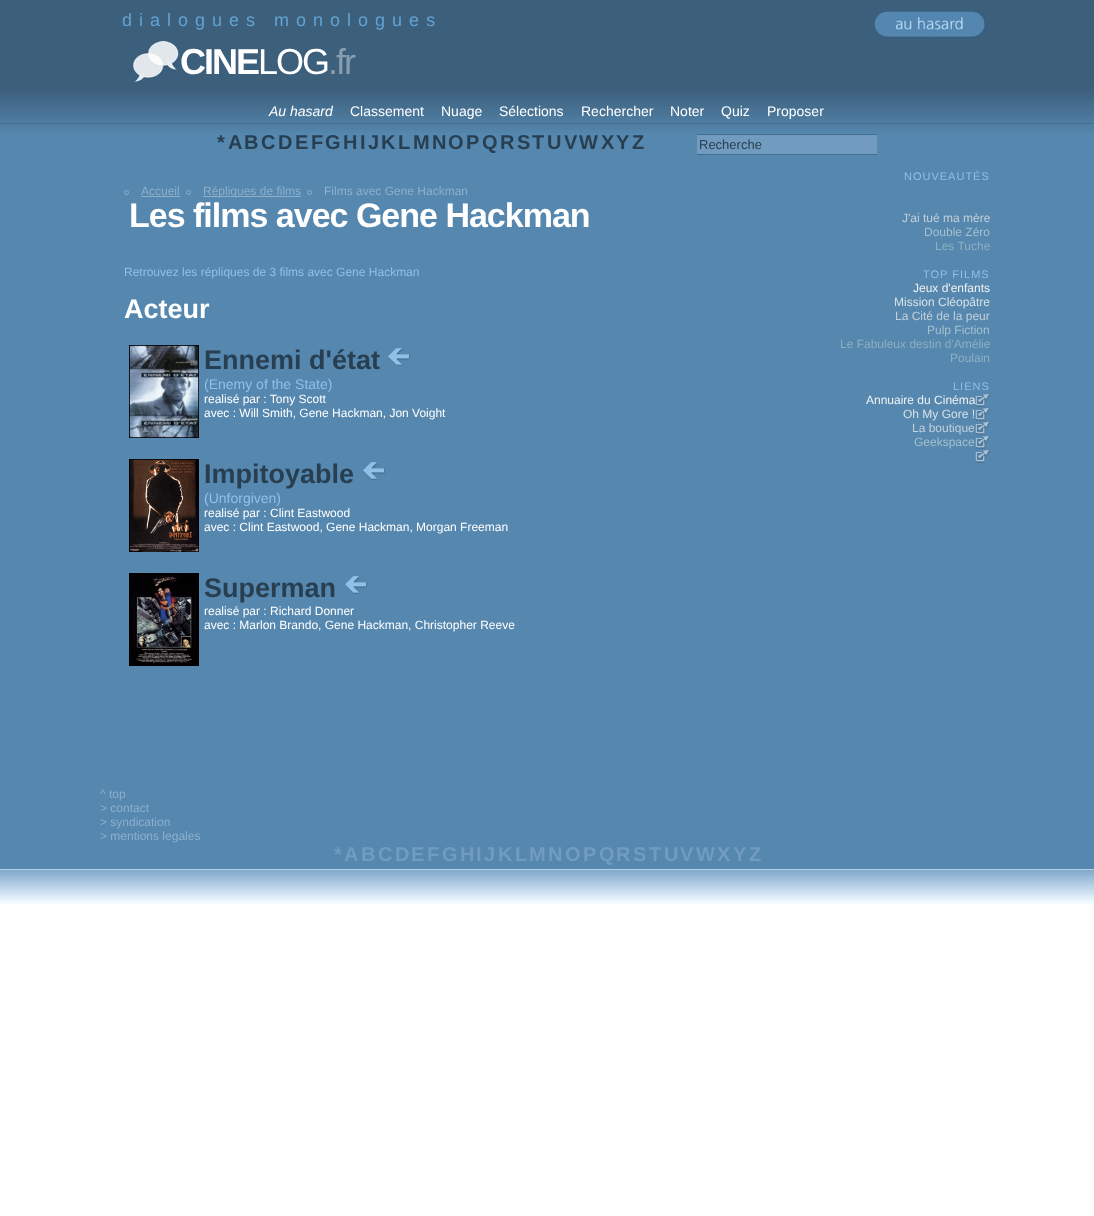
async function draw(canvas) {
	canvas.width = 1094;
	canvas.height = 1216;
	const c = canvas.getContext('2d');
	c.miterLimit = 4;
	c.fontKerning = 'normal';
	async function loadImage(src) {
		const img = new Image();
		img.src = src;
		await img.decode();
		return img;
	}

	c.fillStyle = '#fff';
	c.fillRect(0, 0, 1094, 1216);
	c.fillStyle = '#3c5f7b';
	c.fillRect(0, 0, 1094, 83);
	c.letterSpacing = '7px';
	c.font = '18px Liberation Sans';
	c.fillStyle = '#62a3d3';
	c.fillText('dialogues monologues', 122, 26);
	c.drawImage(await loadImage('img1.png'), 873, 10, 114, 29);
	c.drawImage(await loadImage('img2.png'), 130, 41, 51, 41);
	c.letterSpacing = '-2px';
	c.font = 'bold 36px Liberation Sans';
	c.fillStyle = '#fff';
	c.fillText('CINE', 180, 74);
	c.font = '36px Liberation Sans';
	c.fillText('LOG', 258, 74);
	c.fillStyle = '#889dae';
	c.fillText('.fr', 328, 74);
	c.fillStyle = '#5587af';
	c.fillRect(0, 133, 1094, 736);
	c.drawImage(await loadImage('img3.png'), 0, 83, 1094, 50);
	c.letterSpacing = '0px';
	c.font = 'italic 14px Liberation Sans';
	c.fillStyle = '#fff';
	c.fillText('Au hasard', 269, 116);
	c.font = '14px Liberation Sans';
	for (const [text, x, y] of [
		['Classement', 350, 116],
		['Nuage', 441, 116],
		['Sélections', 499, 116],
		['Rechercher', 581, 116],
		['Noter', 670, 116],
		['Quiz', 721, 116],
		['Proposer', 767, 116],
	]) {
		c.fillText(text, x, y);
	}
	c.beginPath();
	c.moveTo(0, 123.5);
	c.lineTo(1094, 123.5);
	c.strokeStyle = '#3c5f7b';
	c.setLineDash([1, 1]);
	c.stroke();
	c.font = 'bold 20px Liberation Sans';
	c.fillStyle = '#283f51';
	for (const [text, x, y] of [
		['*', 217, 149],
		['A', 228, 149],
		['B', 244, 149],
		['C', 261, 149],
		['D', 278, 149],
		['E', 295, 149],
		['F', 311, 149],
		['G', 325, 149],
		['H', 343, 149],
		['I', 360, 149],
		['J', 368, 149],
		['K', 381, 149],
		['L', 398, 149],
		['M', 413, 149],
		['N', 432, 149],
		['O', 448, 149],
		['P', 466, 149],
		['Q', 482, 149],
		['R', 500, 149],
		['S', 517, 149],
		['T', 532, 149],
		['U', 547, 149],
		['V', 564, 149],
		['W', 579, 149],
		['X', 601, 149],
		['Y', 616, 149],
		['Z', 632, 149],
	]) {
		c.fillText(text, x, y);
	}
	for (const [x, y, w, h, color] of [
		[697, 135, 180, 19, '#719cbf'],
		[697, 134, 180, 1, '#446c8d'],
		[697, 154, 180, 1, '#446c8d'],
	]) {
		c.fillStyle = color;
		c.fillRect(x, y, w, h);
	}
	c.font = '13px Liberation Sans';
	c.fillStyle = '#283f51';
	c.fillText('Recherche', 699, 149);
	c.beginPath();
	c.arc(126.5, 192.5, 2, 0, 2 * Math.PI);
	c.strokeStyle = '#8db0cc';
	c.setLineDash([]);
	c.stroke();
	c.font = '12px Liberation Sans';
	c.fillStyle = '#8db0cc';
	c.fillText('Accueil', 141, 195);
	c.fillRect(141, 196, 39, 1);
	c.beginPath();
	c.arc(188.5, 192.5, 2, 0, 2 * Math.PI);
	c.stroke();
	c.fillRect(203, 196, 98, 1);
	c.fillText('Répliques de films', 203, 195);
	c.beginPath();
	c.arc(309.5, 192.5, 2, 0, 2 * Math.PI);
	c.stroke();
	c.fillText('Films avec Gene Hackman', 324, 195);
	c.letterSpacing = '-1px';
	c.font = 'bold 34px Liberation Sans';
	c.fillStyle = '#fff';
	c.fillText('Les films avec Gene Hackman', 129, 227);
	c.letterSpacing = '0px';
	c.font = '12px Liberation Sans';
	c.fillStyle = '#8fc1e8';
	c.fillText('Retrouvez les répliques de 3 films avec Gene Hackman', 124, 276);
	c.font = 'bold 27px Liberation Sans';
	c.fillStyle = '#fff';
	c.fillText('Acteur', 124, 318);
	c.drawImage(await loadImage('img4.png'), 129, 345, 70, 93);
	c.fillStyle = '#283f51';
	c.fillText('Ennemi d\'état', 204, 369);
	c.drawImage(await loadImage('img5.png'), 388, 348, 23, 18);
	c.font = '14px Liberation Sans';
	c.fillStyle = '#8fc1e8';
	c.fillText('(Enemy of the State)', 204, 389);
	c.font = '12px Liberation Sans';
	c.fillStyle = '#fff';
	c.fillText('realisé par : Tony Scott', 204, 403);
	c.fillText('avec : Will Smith, Gene Hackman, Jon Voight', 204, 417);
	c.drawImage(await loadImage('img6.png'), 129, 459, 70, 93);
	c.font = 'bold 27px Liberation Sans';
	c.fillStyle = '#283f51';
	c.fillText('Impitoyable', 204, 483);
	c.drawImage(await loadImage('img5.png'), 363, 462, 23, 18);
	c.font = '14px Liberation Sans';
	c.fillStyle = '#8fc1e8';
	c.fillText('(Unforgiven)', 204, 503);
	c.font = '12px Liberation Sans';
	c.fillStyle = '#fff';
	c.fillText('realisé par : Clint Eastwood', 204, 517);
	c.fillText('avec : Clint Eastwood, Gene Hackman, Morgan Freeman', 204, 531);
	c.drawImage(await loadImage('img7.png'), 129, 573, 70, 93);
	c.font = 'bold 27px Liberation Sans';
	c.fillStyle = '#283f51';
	c.fillText('Superman', 204, 597);
	c.drawImage(await loadImage('img5.png'), 345, 576, 23, 18);
	c.font = '12px Liberation Sans';
	c.fillStyle = '#fff';
	c.fillText('realisé par : Richard Donner', 204, 615);
	c.fillText('avec : Marlon Brando, Gene Hackman, Christopher Reeve', 204, 629);
	c.letterSpacing = '1px';
	c.font = '11px Liberation Sans';
	c.fillStyle = '#8fc1e8';
	c.fillText('NOUVEAUTÉS', 904, 180);
	c.letterSpacing = '0px';
	c.font = '12px Liberation Sans';
	c.fillStyle = '#c3d0d8';
	c.fillText('J\'ai tué ma mère', 902, 222);
	c.fillStyle = '#a5c0cc';
	c.fillText('Double Zéro', 924, 236);
	c.fillStyle = '#8db0bf';
	c.fillText('Les Tuche', 935, 250);
	c.letterSpacing = '1px';
	c.font = '11px Liberation Sans';
	c.fillStyle = '#8fc1e8';
	c.fillText('TOP FILMS', 923, 278);
	c.letterSpacing = '0px';
	c.font = '12px Liberation Sans';
	c.fillStyle = '#f0f1f2';
	c.fillText('Jeux d\'enfants', 913, 292);
	c.fillStyle = '#d7e1e6';
	c.fillText('Mission Cléopâtre', 894, 306);
	c.fillStyle = '#c3d0d8';
	c.fillText('La Cité de la peur', 895, 320);
	c.fillStyle = '#a5c0cc';
	c.fillText('Pulp Fiction', 927, 334);
	c.fillStyle = '#8db0bf';
	c.fillText('Le Fabuleux destin d\'Amélie', 840, 348);
	c.fillText('Poulain', 950, 362);
	c.letterSpacing = '1px';
	c.font = '11px Liberation Sans';
	c.fillStyle = '#8fc1e8';
	c.fillText('LIENS', 953, 390);
	c.drawImage(await loadImage('img8.png'), 974, 393, 16, 14);
	c.letterSpacing = '0px';
	c.font = '12px Liberation Sans';
	c.fillStyle = '#f0f1f2';
	c.fillText('Annuaire du Cinéma', 866, 404);
	c.fillStyle = '#d7e1e6';
	c.fillText('Oh My Gore !', 903, 418);
	c.drawImage(await loadImage('img8.png'), 974, 407, 16, 14);
	c.drawImage(await loadImage('img8.png'), 974, 421, 16, 14);
	c.fillStyle = '#c3d0d8';
	c.fillText('La boutique', 912, 432);
	c.drawImage(await loadImage('img8.png'), 974, 435, 16, 14);
	c.fillStyle = '#a5c0cc';
	c.fillText('Geekspace', 914, 446);
	c.drawImage(await loadImage('img9.png'), 975, 449, 15, 14);
	c.fillStyle = '#8db0cc';
	for (const [text, x, y] of [
		['^ top', 100, 798],
		['> contact', 100, 812],
		['> syndication', 100, 826],
		['> mentions legales', 100, 840],
	]) {
		c.fillText(text, x, y);
	}
	c.font = 'bold 20px Liberation Sans';
	c.fillStyle = '#719cbf';
	for (const [text, x, y] of [
		['*', 334, 861],
		['A', 344, 861],
		['B', 361, 861],
		['C', 378, 861],
		['D', 395, 861],
		['E', 411, 861],
		['F', 427, 861],
		['G', 442, 861],
		['H', 460, 861],
		['I', 476, 861],
		['J', 484, 861],
		['K', 498, 861],
		['L', 515, 861],
		['M', 529, 861],
		['N', 548, 861],
		['O', 565, 861],
		['P', 583, 861],
		['Q', 599, 861],
		['R', 616, 861],
		['S', 633, 861],
		['T', 649, 861],
		['U', 664, 861],
		['V', 680, 861],
		['W', 696, 861],
		['X', 717, 861],
		['Y', 733, 861],
		['Z', 749, 861],
	]) {
		c.fillText(text, x, y);
	}
	c.drawImage(await loadImage('img10.png'), 0, 869, 1094, 36);
}

draw(document.querySelector('canvas'));
